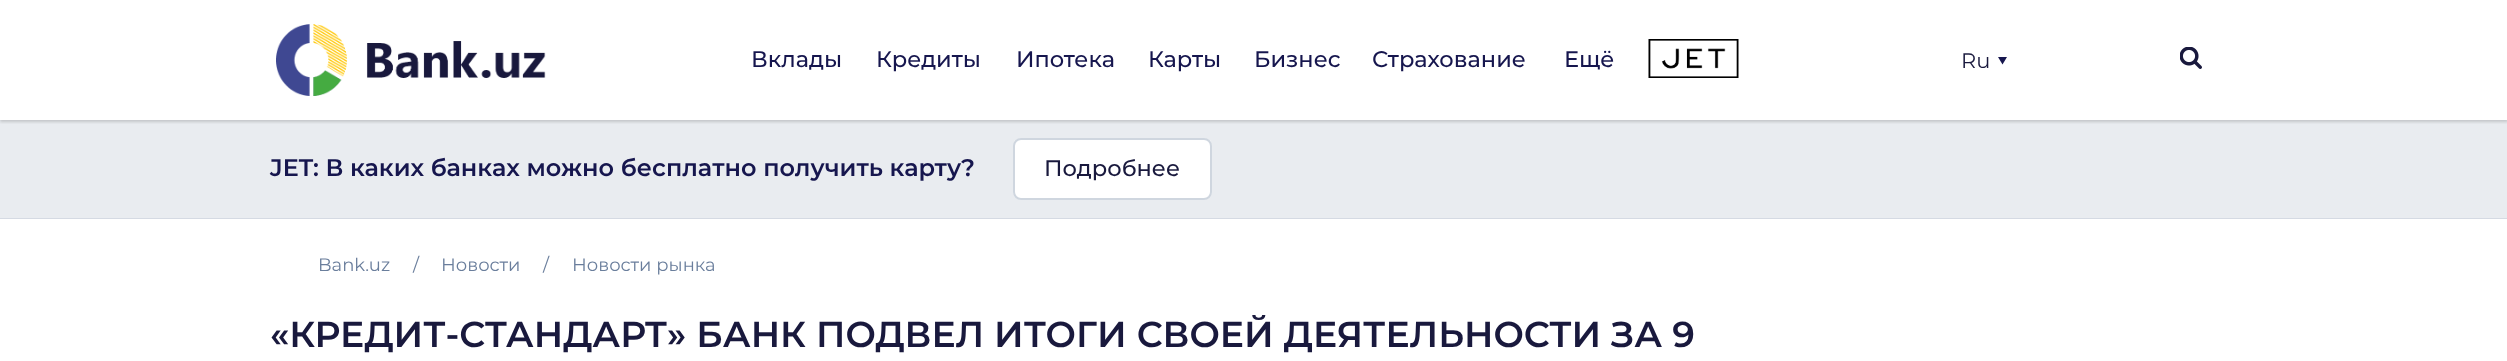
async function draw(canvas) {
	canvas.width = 2507;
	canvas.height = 361;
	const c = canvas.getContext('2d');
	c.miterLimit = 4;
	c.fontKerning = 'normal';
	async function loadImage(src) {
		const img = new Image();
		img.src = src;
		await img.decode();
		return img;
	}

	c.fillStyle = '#fff';
	c.fillRect(0, 0, 2507, 361);
	c.fillStyle = '#e9ecf0';
	c.fillRect(0, 120, 2507, 98);
	c.save();
	c.beginPath();
	c.rect(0, 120, 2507, 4);
	c.clip();
	c.fillStyle = '#00000029';
	c.filter = 'blur(1.5px)';
	c.beginPath();
	c.rect(0, 2, 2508, 120);
	c.fill();
	c.filter = 'none';
	c.restore();
	c.drawImage(await loadImage('img1.png'), 276, 24, 270, 72);
	c.font = '500 22.5px Montserrat';
	c.fillStyle = '#16164e';
	for (const [text, x, y] of [
		['Вклады', 751, 67],
		['Кредиты', 876, 67],
		['Ипотека', 1016, 67],
		['Карты', 1148, 67],
		['Бизнес', 1254, 67],
		['Страхование', 1372, 67],
		['Ещё', 1564, 67],
	]) {
		c.fillText(text, x, y);
	}
	c.drawImage(await loadImage('img2.png'), 1648, 39, 91, 39);
	c.font = '21px Montserrat';
	c.fillStyle = '#19193d';
	c.fillText('Ru', 1961, 68);
	c.fillStyle = '#16164e';
	c.beginPath();
	c.moveTo(1998, 57);
	c.lineTo(2007, 57);
	c.lineTo(2002.5, 64.5);
	c.closePath();
	c.fill();
	c.drawImage(await loadImage('img3.png'), 2180, 47, 22, 22);
	c.fillStyle = '#d5dae3';
	c.fillRect(0, 218, 2507, 1);
	c.font = '600 24px Montserrat';
	c.fillStyle = '#16164e';
	c.fillText('JET: В каких банках можно бесплатно получить карту?', 270, 176);
	c.fillStyle = '#fff';
	c.beginPath();
	c.roundRect(1013, 138, 199, 62, 8);
	c.fill();
	c.beginPath();
	c.roundRect(1014, 139, 197, 60, 7);
	c.strokeStyle = '#6a7e9c52';
	c.lineWidth = 2;
	c.stroke();
	c.font = '500 22.5px Montserrat';
	c.fillStyle = '#19193d';
	c.fillText('Подробнее', 1044, 176);
	c.font = '18px Montserrat';
	c.fillStyle = '#6a7e9c';
	for (const [text, x, y] of [
		['Bank.uz', 318, 271],
		['/', 413, 271],
		['Новости', 441, 271],
		['/', 543, 271],
		['Новости рынка', 572, 271],
	]) {
		c.fillText(text, x, y);
	}
	c.font = '600 36px Montserrat';
	c.fillStyle = '#19193d';
	c.fillText('«КРЕДИТ-СТАНДАРТ» БАНК ПОДВЕЛ ИТОГИ СВОЕЙ ДЕЯТЕЛЬНОСТИ ЗА 9', 270, 347);
}

draw(document.querySelector('canvas'));
